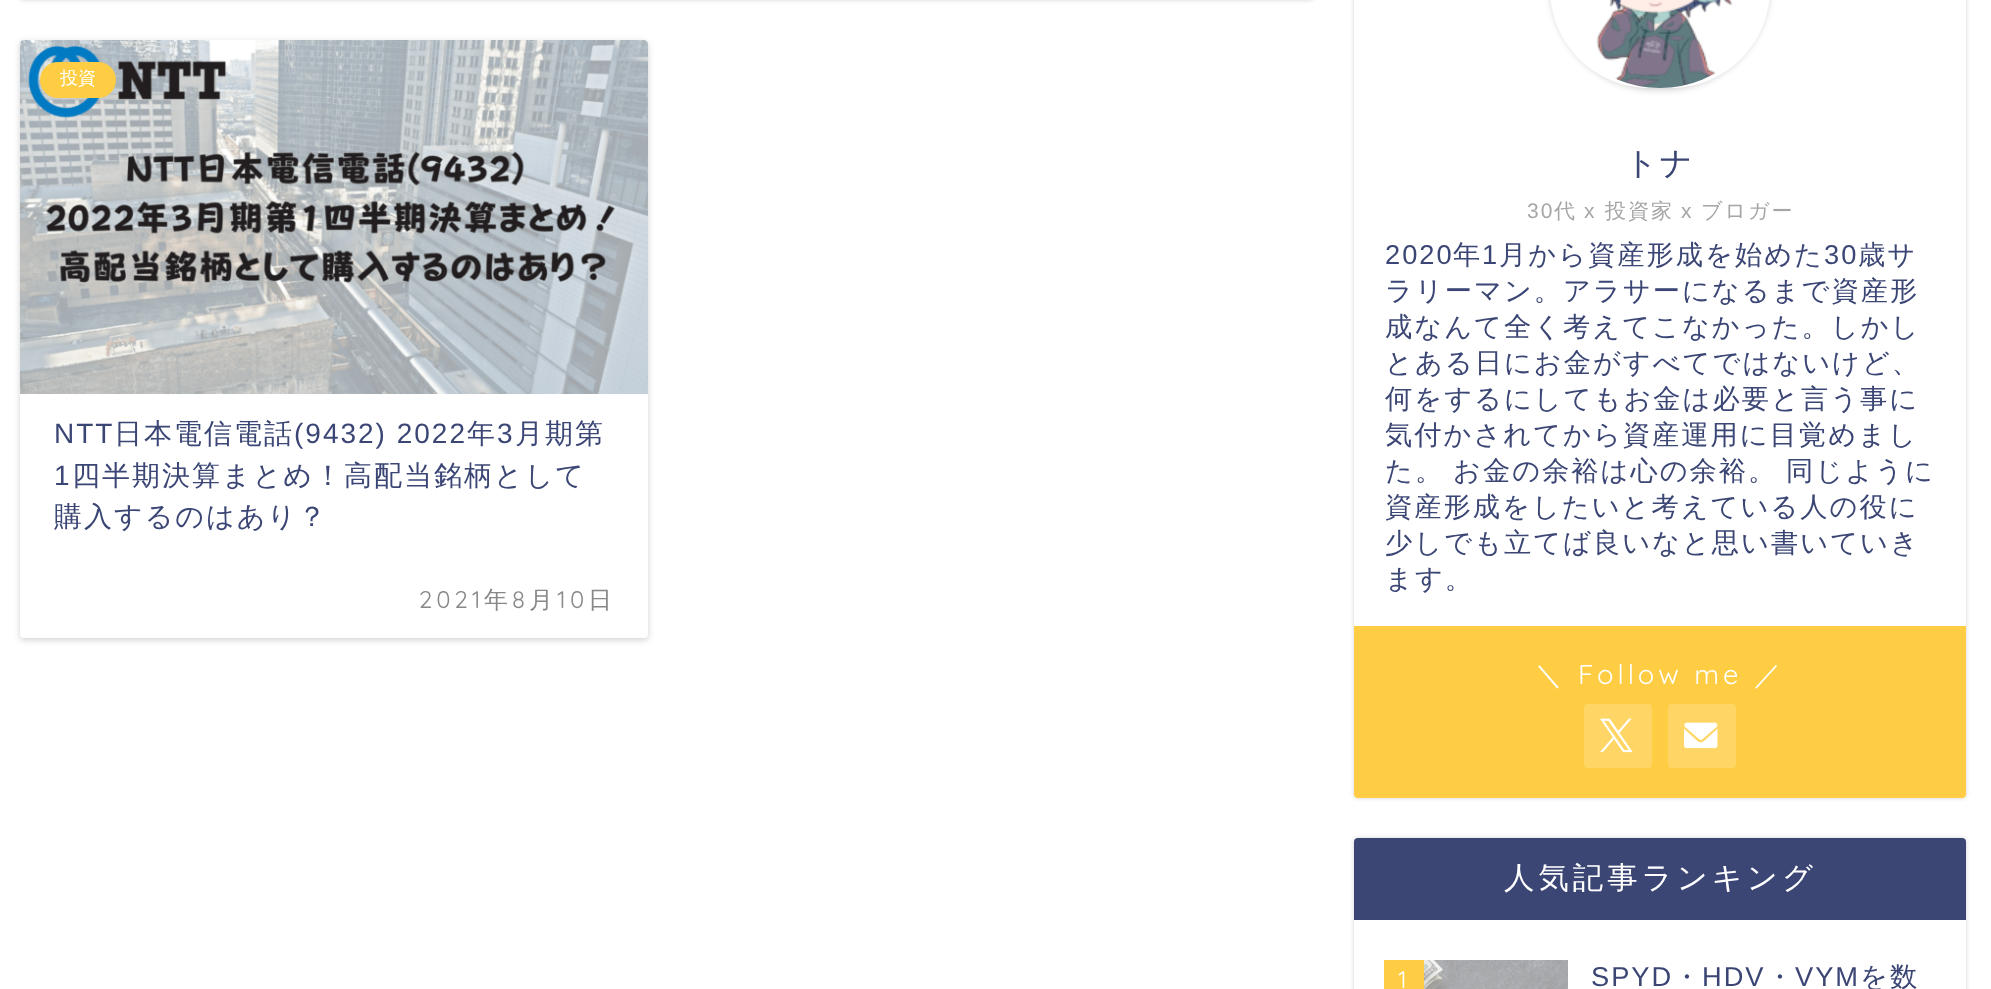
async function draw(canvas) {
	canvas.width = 1991;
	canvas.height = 989;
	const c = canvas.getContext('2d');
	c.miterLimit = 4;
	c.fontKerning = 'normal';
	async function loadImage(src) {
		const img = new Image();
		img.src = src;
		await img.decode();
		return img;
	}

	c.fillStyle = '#fff';
	c.fillRect(0, 0, 1991, 989);
	c.fillStyle = '#0000002e';
	c.filter = 'blur(2px)';
	c.beginPath();
	c.roundRect(20, -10, 1294, 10, 4);
	c.fill();
	c.filter = 'none';
	c.filter = 'blur(3px)';
	c.beginPath();
	c.roundRect(20, 42, 628, 598, 4);
	c.fill();
	c.filter = 'none';
	c.fillStyle = '#fff';
	c.beginPath();
	c.roundRect(20, 40, 628, 598, 4);
	c.fill();
	c.drawImage(await loadImage('img1.png'), 20, 40, 628, 354);
	c.fillStyle = '#ffcd44';
	c.beginPath();
	c.roundRect(40, 62, 76, 36, 18);
	c.fill();
	c.font = '500 18px WenQuanYi Zen Hei';
	c.fillStyle = '#fff';
	c.fillText('投資', 60, 84);
	c.letterSpacing = '2px';
	c.font = '28px Liberation Sans';
	c.fillStyle = '#3b4675';
	c.fillText('NTT', 54, 443);
	c.font = '500 28px WenQuanYi Zen Hei';
	c.fillText('日本電信電話', 114, 443);
	c.font = '28px Liberation Sans';
	c.fillText('(9432) 2022', 294, 443);
	c.font = '500 28px WenQuanYi Zen Hei';
	c.fillText('年', 467, 443);
	c.font = '28px Liberation Sans';
	c.fillText('3', 497, 443);
	c.font = '500 28px WenQuanYi Zen Hei';
	c.fillText('月期第', 515, 443);
	c.font = '28px Liberation Sans';
	c.fillText('1', 54, 485);
	c.font = '500 28px WenQuanYi Zen Hei';
	c.fillText('四半期決算まとめ！高配当銘柄として', 72, 485);
	c.fillText('購入するのはあり？', 54, 526);
	c.letterSpacing = '4px';
	c.font = '300 24px Quicksand';
	c.fillStyle = '#888';
	c.fillText('2021', 419, 608);
	c.font = '500 24px WenQuanYi Zen Hei';
	c.fillText('年', 484, 608);
	c.font = '300 24px Quicksand';
	c.fillText('8', 512, 608);
	c.font = '500 24px WenQuanYi Zen Hei';
	c.fillText('月', 529, 608);
	c.font = '300 24px Quicksand';
	c.fillText('10', 557, 608);
	c.font = '500 24px WenQuanYi Zen Hei';
	c.fillText('日', 588, 608);
	c.fillStyle = '#0000002e';
	c.filter = 'blur(2px)';
	c.beginPath();
	c.roundRect(1354, -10, 612, 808, 4);
	c.fill();
	c.filter = 'none';
	c.fillStyle = '#fff';
	c.beginPath();
	c.roundRect(1354, -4, 612, 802, 4);
	c.fill();
	c.fillStyle = '#0000002e';
	c.filter = 'blur(3px)';
	c.beginPath();
	c.roundRect(1550, -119, 220, 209, 110);
	c.fill();
	c.filter = 'none';
	c.fillStyle = '#fff';
	c.beginPath();
	c.roundRect(1550, -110, 220, 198, 110);
	c.fill();
	c.drawImage(await loadImage('img2.png'), 1596, 0, 137, 88);
	c.letterSpacing = '2px';
	c.font = '500 32px WenQuanYi Zen Hei';
	c.fillStyle = '#3b4675';
	c.fillText('トナ', 1625, 174);
	c.font = '21px Liberation Sans';
	c.fillStyle = '#a6a6a6';
	c.fillText('30', 1527, 218);
	c.font = '500 21px WenQuanYi Zen Hei';
	c.fillText('代', 1554, 218);
	c.font = '21px Liberation Sans';
	c.fillText('x', 1584, 218);
	c.font = '500 21px WenQuanYi Zen Hei';
	c.fillText('投資家', 1605, 218);
	c.font = '21px Liberation Sans';
	c.fillText('x', 1681, 218);
	c.font = '500 21px WenQuanYi Zen Hei';
	c.fillText('ブロガー', 1701, 218);
	c.font = '27.25px Liberation Sans';
	c.fillStyle = '#3b4675';
	c.fillText('2020', 1385, 264);
	c.font = '500 27.25px WenQuanYi Zen Hei';
	c.fillText('年', 1453, 264);
	c.font = '27.25px Liberation Sans';
	c.fillText('1', 1482, 264);
	c.font = '500 27.25px WenQuanYi Zen Hei';
	c.fillText('月から資産形成を始めた', 1499, 264);
	c.font = '27.25px Liberation Sans';
	c.fillText('30', 1824, 264);
	c.font = '500 27.25px WenQuanYi Zen Hei';
	for (const [text, x, y] of [
		['歳サ', 1858, 264],
		['ラリーマン。アラサーになるまで資産形', 1385, 300],
		['成なんて全く考えてこなかった。しかし', 1385, 336],
		['とある日にお金がすべてではないけど、', 1385, 372],
		['何をするにしてもお金は必要と言う事に', 1385, 408],
		['気付かされてから資産運用に目覚めまし', 1385, 444],
		['た。', 1385, 480],
		['お金の余裕は心の余裕。', 1453, 480],
		['同じように', 1786, 480],
		['資産形成をしたいと考えている人の役に', 1385, 516],
		['少しでも立てば良いなと思い書いていき', 1385, 552],
		['ます。', 1385, 588],
	]) {
		c.fillText(text, x, y);
	}
	c.fillStyle = '#ffcd44';
	c.beginPath();
	c.roundRect(1354, 626, 612, 172, [0, 0, 4, 4]);
	c.fill();
	c.letterSpacing = '4px';
	c.fillStyle = '#fff';
	c.fillText('＼', 1535, 684);
	c.font = '300 27.25px Quicksand';
	c.fillText('Follow me', 1578, 684);
	c.font = '500 27.25px WenQuanYi Zen Hei';
	c.fillText('／', 1754, 684);
	c.fillStyle = '#ffd666';
	c.beginPath();
	c.roundRect(1584, 704, 68, 64, 4);
	c.fill();
	c.drawImage(await loadImage('img3.png'), 1600, 718, 33, 35);
	c.beginPath();
	c.roundRect(1668, 704, 68, 64, 4);
	c.fill();
	c.drawImage(await loadImage('img4.png'), 1684, 722, 34, 27);
	c.fillStyle = '#0000002e';
	c.filter = 'blur(2px)';
	c.beginPath();
	c.roundRect(1354, 838, 612, 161, 4);
	c.fill();
	c.filter = 'none';
	c.fillStyle = '#fff';
	c.beginPath();
	c.roundRect(1354, 838, 612, 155, 4);
	c.fill();
	c.fillStyle = '#3b4675';
	c.beginPath();
	c.roundRect(1354, 838, 612, 82, [4, 4, 0, 0]);
	c.fill();
	c.font = '500 30.4px WenQuanYi Zen Hei';
	c.fillStyle = '#fff';
	c.fillText('人気記事ランキング', 1504, 888);
	c.fillStyle = '#ffcd44';
	c.fillRect(1384, 960, 40, 29);
	c.font = '300 24px Quicksand';
	c.fillStyle = '#fff';
	c.fillText('1', 1398, 988);
	c.drawImage(await loadImage('img5.png'), 1424, 960, 144, 29);
	c.letterSpacing = '2px';
	c.font = '27.25px Liberation Sans';
	c.fillStyle = '#3b4675';
	c.fillText('SPYD', 1591, 986);
	c.font = '500 27.25px WenQuanYi Zen Hei';
	c.fillText('・', 1673, 986);
	c.font = '27.25px Liberation Sans';
	c.fillText('HDV', 1702, 986);
	c.font = '500 27.25px WenQuanYi Zen Hei';
	c.fillText('・', 1766, 986);
	c.font = '27.25px Liberation Sans';
	c.fillText('VYM', 1795, 986);
	c.font = '500 27.25px WenQuanYi Zen Hei';
	c.fillText('を数', 1860, 986);
}

draw(document.querySelector('canvas'));
